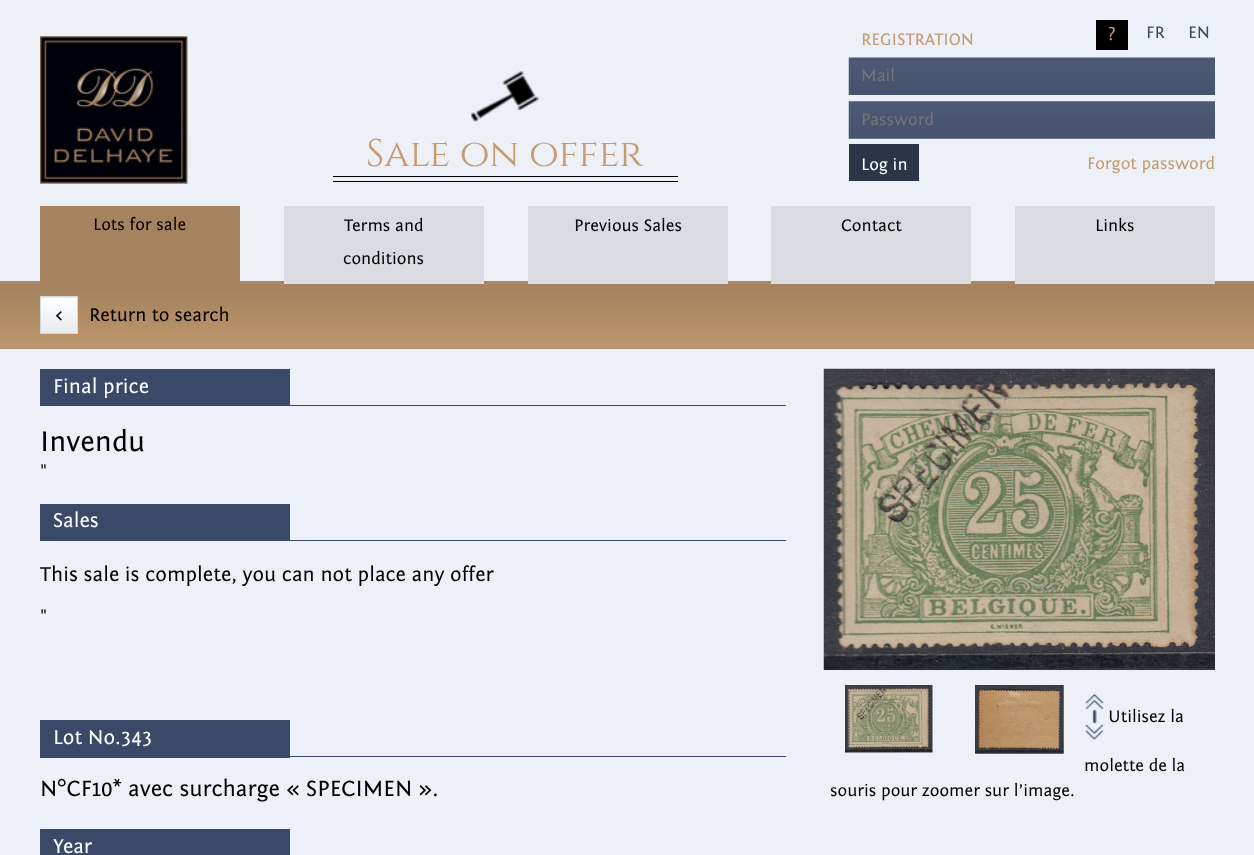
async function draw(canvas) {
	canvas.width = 1254;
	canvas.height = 855;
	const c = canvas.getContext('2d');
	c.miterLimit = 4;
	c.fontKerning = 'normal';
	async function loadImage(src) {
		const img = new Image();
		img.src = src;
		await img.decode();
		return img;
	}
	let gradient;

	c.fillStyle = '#edf0f6';
	c.fillRect(0, 0, 1254, 855);
	c.fillStyle = '#a98763';
	c.fillRect(0, 281, 1254, 3);
	c.drawImage(await loadImage('img1.png'), 40, 36, 148, 148);
	c.fillStyle = '#000';
	c.fillRect(333, 181, 345, 1);
	c.drawImage(await loadImage('img2.png'), 471, 71, 68, 51);
	c.fillRect(333, 176, 345, 1);
	c.font = '38.5px Cinzel';
	c.fillStyle = '#c59b71';
	c.fillText('Sale on offer', 366, 166);
	c.fillStyle = '#000';
	c.fillRect(1096, 20, 32, 30);
	c.font = '17.5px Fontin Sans';
	c.fillStyle = '#c59b71';
	c.fillText('?', 1108, 40);
	c.fillStyle = '#394967';
	c.fillText('FR', 1146, 38);
	c.fillText('EN', 1188, 38);
	c.fillStyle = '#c59b71';
	c.fillText('REGISTRATION', 861, 45);
	c.drawImage(await loadImage('img3.png'), 848, 57, 367, 38);
	c.fillStyle = '#757575';
	c.fillText('Mail', 861, 81);
	c.drawImage(await loadImage('img4.png'), 848, 101, 367, 38);
	c.fillText('Password', 861, 125);
	c.fillStyle = '#2c3548';
	c.fillRect(849, 144, 70, 37);
	c.fillStyle = '#fff';
	c.fillText('Log in', 861, 170);
	c.fillStyle = '#c59b71';
	c.fillText('Forgot password', 1087, 169);
	c.fillStyle = '#a6835f';
	c.fillRect(40, 206, 200, 78);
	c.fillStyle = '#000';
	c.fillText('Lots for sale', 93, 230);
	c.fillStyle = '#dadce2';
	c.fillRect(284, 206, 200, 78);
	c.fillStyle = '#000';
	c.fillText('Terms and', 344, 231);
	c.fillText('conditions', 343, 264);
	c.fillStyle = '#dadce2';
	c.fillRect(528, 206, 200, 78);
	c.fillStyle = '#000';
	c.fillText('Previous Sales', 574, 231);
	c.fillStyle = '#dadce2';
	c.fillRect(771, 206, 200, 78);
	c.fillStyle = '#000';
	c.fillText('Contact', 841, 231);
	c.fillStyle = '#dadce2';
	c.fillRect(1015, 206, 200, 78);
	c.fillStyle = '#000';
	c.fillText('Links', 1095, 231);
	c.drawImage(await loadImage('img5.png'), 0, 284, 1254, 64);
	c.fillStyle = '#a18a72';
	c.fillRect(0, 348, 1254, 1);
	gradient = c.createLinearGradient(59, 263, 59, 298);
	gradient.addColorStop(0, '#fff');
	gradient.addColorStop(1, '#e7eaef');
	c.fillStyle = gradient;
	c.fillRect(40, 297, 38, 1);
	gradient = c.createLinearGradient(59, 298, 59, 333);
	gradient.addColorStop(0, '#fff');
	gradient.addColorStop(1, '#e7eaef');
	c.fillStyle = gradient;
	c.fillRect(41, 298, 36, 35);
	c.strokeStyle = '#d5d8dd';
	c.strokeRect(40.5, 296.5, 37, 37);
	c.font = '21px Fontin Sans';
	c.fillStyle = '#000';
	c.fillText('<', 55, 321);
	c.font = '19.25px Fontin Sans';
	c.fillText('Return to search', 89, 321);
	c.fillStyle = '#394967';
	c.fillRect(40, 369, 250, 37);
	c.font = '21px Fontin Sans';
	c.fillStyle = '#fff';
	c.fillText('Final price', 53, 393);
	c.fillStyle = '#394967';
	c.fillRect(290, 405, 496, 1);
	c.font = '29.5px Fontin Sans';
	c.fillStyle = '#000';
	c.fillText('Invendu', 40, 451);
	c.font = '17.5px Fontin Sans';
	c.fillText('"', 40, 476);
	c.fillStyle = '#394967';
	c.fillRect(40, 504, 250, 37);
	c.font = '21px Fontin Sans';
	c.fillStyle = '#fff';
	c.fillText('Sales', 53, 527);
	c.fillStyle = '#394967';
	c.fillRect(290, 540, 496, 1);
	c.fillStyle = '#000';
	c.fillText('This sale is complete, you can not place any offer', 40, 581);
	c.font = '17.5px Fontin Sans';
	c.fillText('"', 40, 621);
	c.fillStyle = '#394967';
	c.fillRect(40, 720, 250, 38);
	c.font = '21px Fontin Sans';
	c.fillStyle = '#fff';
	c.fillText('Lot No.343', 53, 744);
	c.fillStyle = '#394967';
	c.fillRect(290, 756, 496, 1);
	c.font = '23.1px Fontin Sans';
	c.fillStyle = '#000';
	c.fillText('N°CF10* avec surcharge « SPECIMEN ».', 40, 796);
	c.fillStyle = '#394967';
	c.fillRect(40, 829, 250, 26);
	c.font = '21px Fontin Sans';
	c.fillStyle = '#fff';
	c.fillText('Year', 53, 853);
	c.drawImage(await loadImage('img6.png'), 823, 368, 392, 302);
	c.drawImage(await loadImage('img7.png'), 845, 685, 88, 68);
	c.drawImage(await loadImage('img8.png'), 975, 685, 89, 69);
	c.drawImage(await loadImage('img9.png'), 1085, 693, 19, 47);
	c.font = '17.5px Fontin Sans';
	c.fillStyle = '#000';
	for (const [text, x, y] of [
		['Utilisez la', 1108, 722],
		['molette de la', 1084, 771],
		['souris pour zoomer sur l’image.', 830, 796],
	]) {
		c.fillText(text, x, y);
	}
}

draw(document.querySelector('canvas'));
